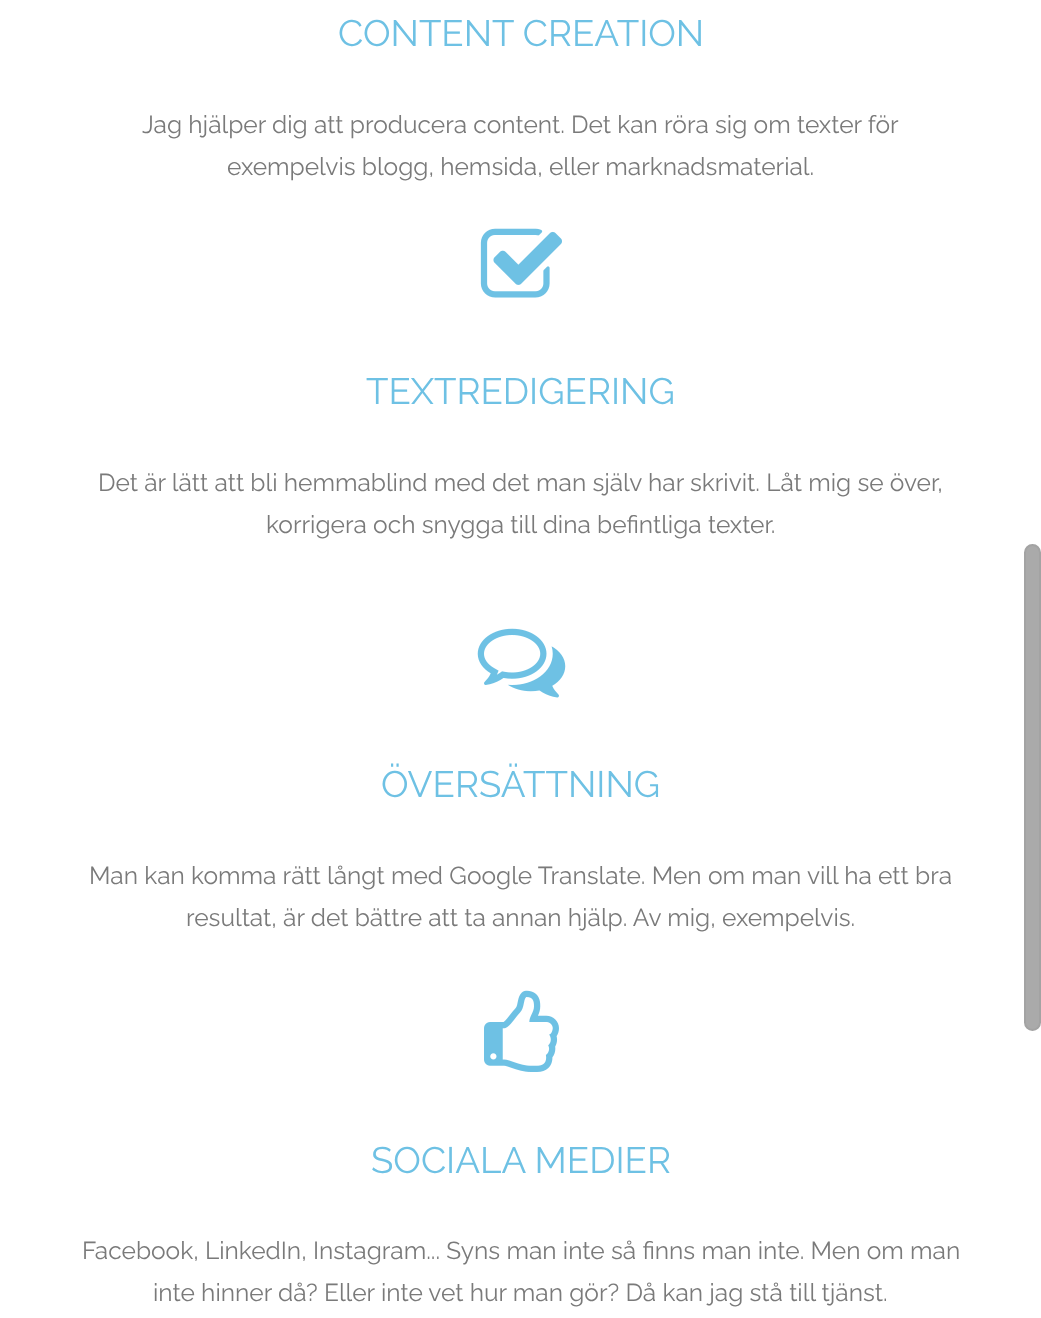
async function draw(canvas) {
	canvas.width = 1041;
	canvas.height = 1318;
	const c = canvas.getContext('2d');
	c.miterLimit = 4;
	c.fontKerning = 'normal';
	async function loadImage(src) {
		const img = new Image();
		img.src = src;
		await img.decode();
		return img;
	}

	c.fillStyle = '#fff';
	c.fillRect(0, 0, 1041, 1318);
	c.font = '36.75px Raleway';
	c.fillStyle = '#6ec1e4';
	c.fillText('CONTENT CREATION', 338, 46);
	c.font = '24.5px Raleway';
	c.fillStyle = '#7a7a7a';
	c.fillText('Jag hjälper dig att producera content. Det kan röra sig om texter för', 142, 133);
	c.fillText('exempelvis blogg, hemsida, eller marknadsmaterial.', 227, 175);
	c.drawImage(await loadImage('img1.png'), 480, 228, 82, 70);
	c.font = '36.75px Raleway';
	c.fillStyle = '#6ec1e4';
	c.fillText('TEXTREDIGERING', 366, 404);
	c.font = '24.5px Raleway';
	c.fillStyle = '#7a7a7a';
	c.fillText('Det är lätt att bli hemmablind med det man själv har skrivit. Låt mig se över,', 98, 491);
	c.fillText('korrigera och snygga till dina befintliga texter.', 266, 533);
	c.drawImage(await loadImage('img2.png'), 477, 628, 89, 70);
	c.font = '36.75px Raleway';
	c.fillStyle = '#6ec1e4';
	c.fillText('ÖVERSÄTTNING', 381, 797);
	c.font = '24.5px Raleway';
	c.fillStyle = '#7a7a7a';
	c.fillText('Man kan komma rätt långt med Google Translate. Men om man vill ha ett bra', 89, 884);
	c.fillText('resultat, är det bättre att ta annan hjälp. Av mig, exempelvis.', 186, 926);
	c.drawImage(await loadImage('img3.png'), 484, 990, 75, 82);
	c.font = '36.75px Raleway';
	c.fillStyle = '#6ec1e4';
	c.fillText('SOCIALA MEDIER', 371, 1173);
	c.font = '24.5px Raleway';
	c.fillStyle = '#7a7a7a';
	c.fillText('Facebook, LinkedIn, Instagram... Syns man inte så finns man inte. Men om man', 82, 1259);
	c.fillText('inte hinner då? Eller inte vet hur man gör? Då kan jag stå till tjänst.', 153, 1301);
	c.fillStyle = '#aaa';
	c.beginPath();
	c.roundRect(1025, 545, 15, 485, 7.5);
	c.fill();
	c.strokeStyle = '#a3a3a3';
	c.lineWidth = 2;
	c.stroke();
}

draw(document.querySelector('canvas'));
